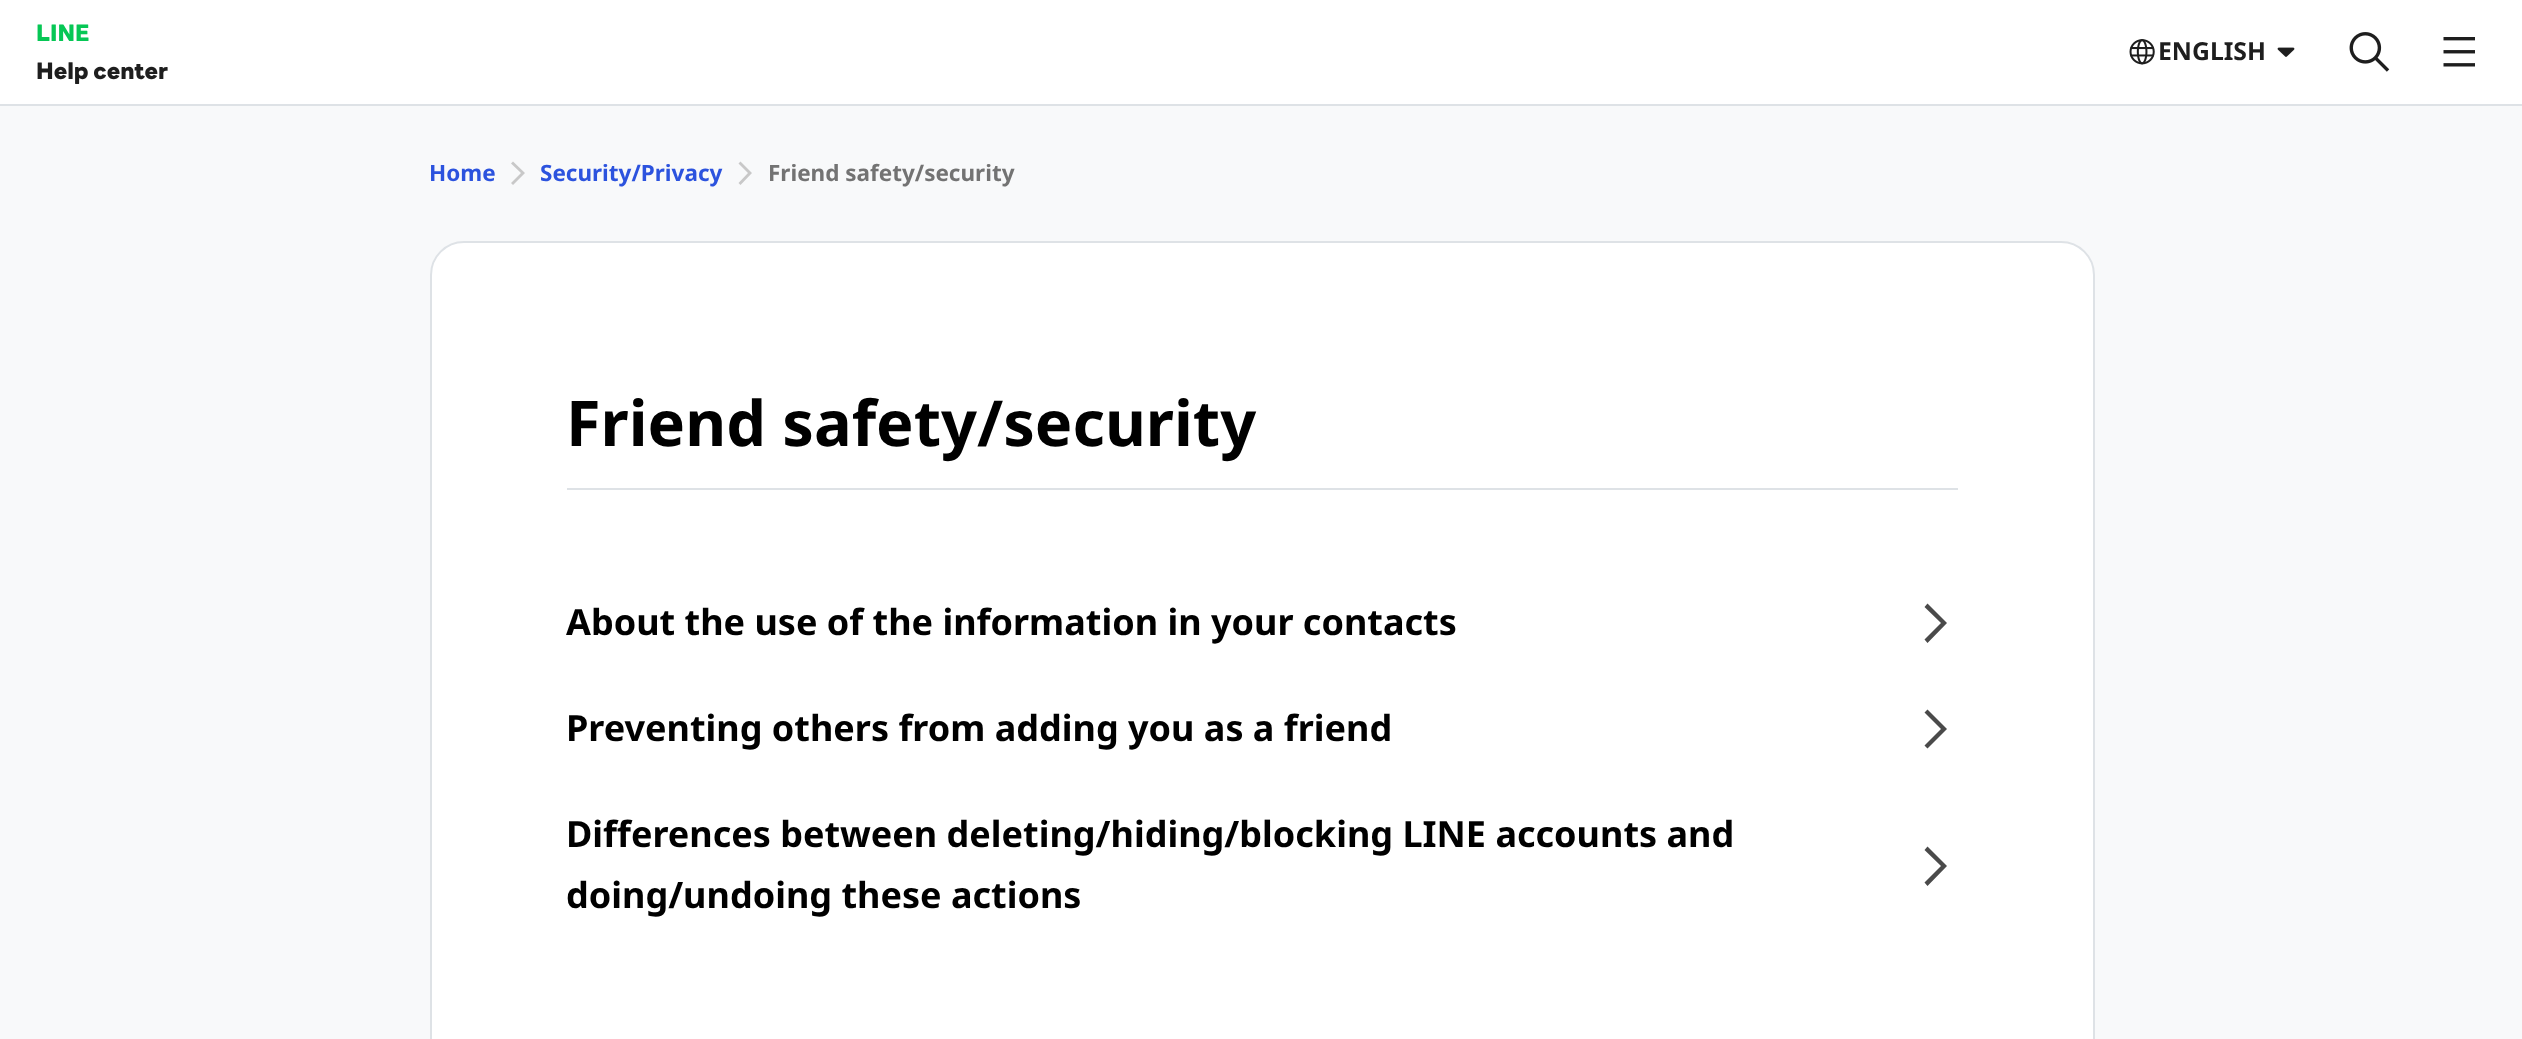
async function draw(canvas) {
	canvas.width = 2522;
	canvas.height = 1039;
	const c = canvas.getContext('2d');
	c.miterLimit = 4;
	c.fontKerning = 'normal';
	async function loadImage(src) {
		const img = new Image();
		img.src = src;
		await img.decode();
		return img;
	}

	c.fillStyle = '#fff';
	c.fillRect(0, 0, 2522, 1039);
	c.fillStyle = '#dee2e6';
	c.fillRect(0, 104, 2522, 2);
	c.font = '800 22.5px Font';
	c.fillStyle = '#06c755';
	c.fillText('LINE', 36, 41);
	c.fillStyle = '#1e1e1e';
	c.fillText('Help center', 36, 79);
	c.drawImage(await loadImage('img1.png'), 2129, 39, 26, 26);
	c.font = 'bold 24.75px Noto Sans';
	c.fillText('ENGLISH', 2158, 60);
	c.drawImage(await loadImage('img2.png'), 2277, 47, 18, 10);
	c.drawImage(await loadImage('img3.png'), 2349, 32, 41, 40);
	c.drawImage(await loadImage('img4.png'), 2443, 37, 32, 30);
	c.fillStyle = '#f8f9fa';
	c.fillRect(0, 106, 2522, 933);
	c.font = 'bold 22.5px Noto Sans';
	c.fillStyle = '#2c53de';
	c.fillText('Home', 429, 181);
	c.fillStyle = '#c8c8c8';
	c.beginPath();
	c.moveTo(513, 161.5);
	c.lineTo(525, 173);
	c.lineTo(513, 185);
	c.lineTo(511, 183);
	c.lineTo(521, 173);
	c.lineTo(511, 163.5);
	c.closePath();
	c.fill();
	c.fillStyle = '#2c53de';
	c.fillText('Security/Privacy', 540, 181);
	c.fillStyle = '#c8c8c8';
	c.beginPath();
	c.moveTo(740.5, 161.5);
	c.lineTo(752, 173);
	c.lineTo(740.5, 185);
	c.lineTo(738.5, 183);
	c.lineTo(748, 173);
	c.lineTo(738.5, 163.5);
	c.closePath();
	c.fill();
	c.fillStyle = '#737373';
	c.fillText('Friend safety/security', 768, 181);
	c.fillStyle = '#fff';
	c.beginPath();
	c.roundRect(431, 242, 1663, 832, 33);
	c.fill();
	c.strokeStyle = '#dee2e6';
	c.lineWidth = 2;
	c.stroke();
	c.fillStyle = '#dee2e6';
	c.fillRect(567, 488, 1391, 2);
	c.font = 'bold 63px Noto Sans';
	c.fillStyle = '#000';
	c.fillText('Friend safety/security', 566, 446);
	c.font = 'bold 36px Noto Sans';
	c.fillText('About the use of the information in your contacts', 566, 635);
	c.fillStyle = '#4a4a4a';
	c.beginPath();
	c.moveTo(1927.5, 603.5);
	c.lineTo(1947, 623);
	c.lineTo(1927.5, 643);
	c.lineTo(1924.5, 639.5);
	c.lineTo(1941, 623);
	c.lineTo(1924.5, 607);
	c.closePath();
	c.fill();
	c.fillStyle = '#000';
	c.fillText('Preventing others from adding you as a friend', 566, 741);
	c.fillStyle = '#4a4a4a';
	c.beginPath();
	c.moveTo(1927.5, 709.5);
	c.lineTo(1947, 729);
	c.lineTo(1927.5, 748.5);
	c.lineTo(1924.5, 745.5);
	c.lineTo(1941, 729);
	c.lineTo(1924.5, 712.5);
	c.closePath();
	c.fill();
	c.fillStyle = '#000';
	c.fillText('Differences between deleting/hiding/blocking LINE accounts and', 566, 847);
	c.fillText('doing/undoing these actions', 566, 908);
	c.fillStyle = '#4a4a4a';
	c.beginPath();
	c.moveTo(1927.5, 846.5);
	c.lineTo(1947, 866);
	c.lineTo(1927.5, 886);
	c.lineTo(1924.5, 882.5);
	c.lineTo(1941, 866);
	c.lineTo(1924.5, 850);
	c.closePath();
	c.fill();
}

draw(document.querySelector('canvas'));
